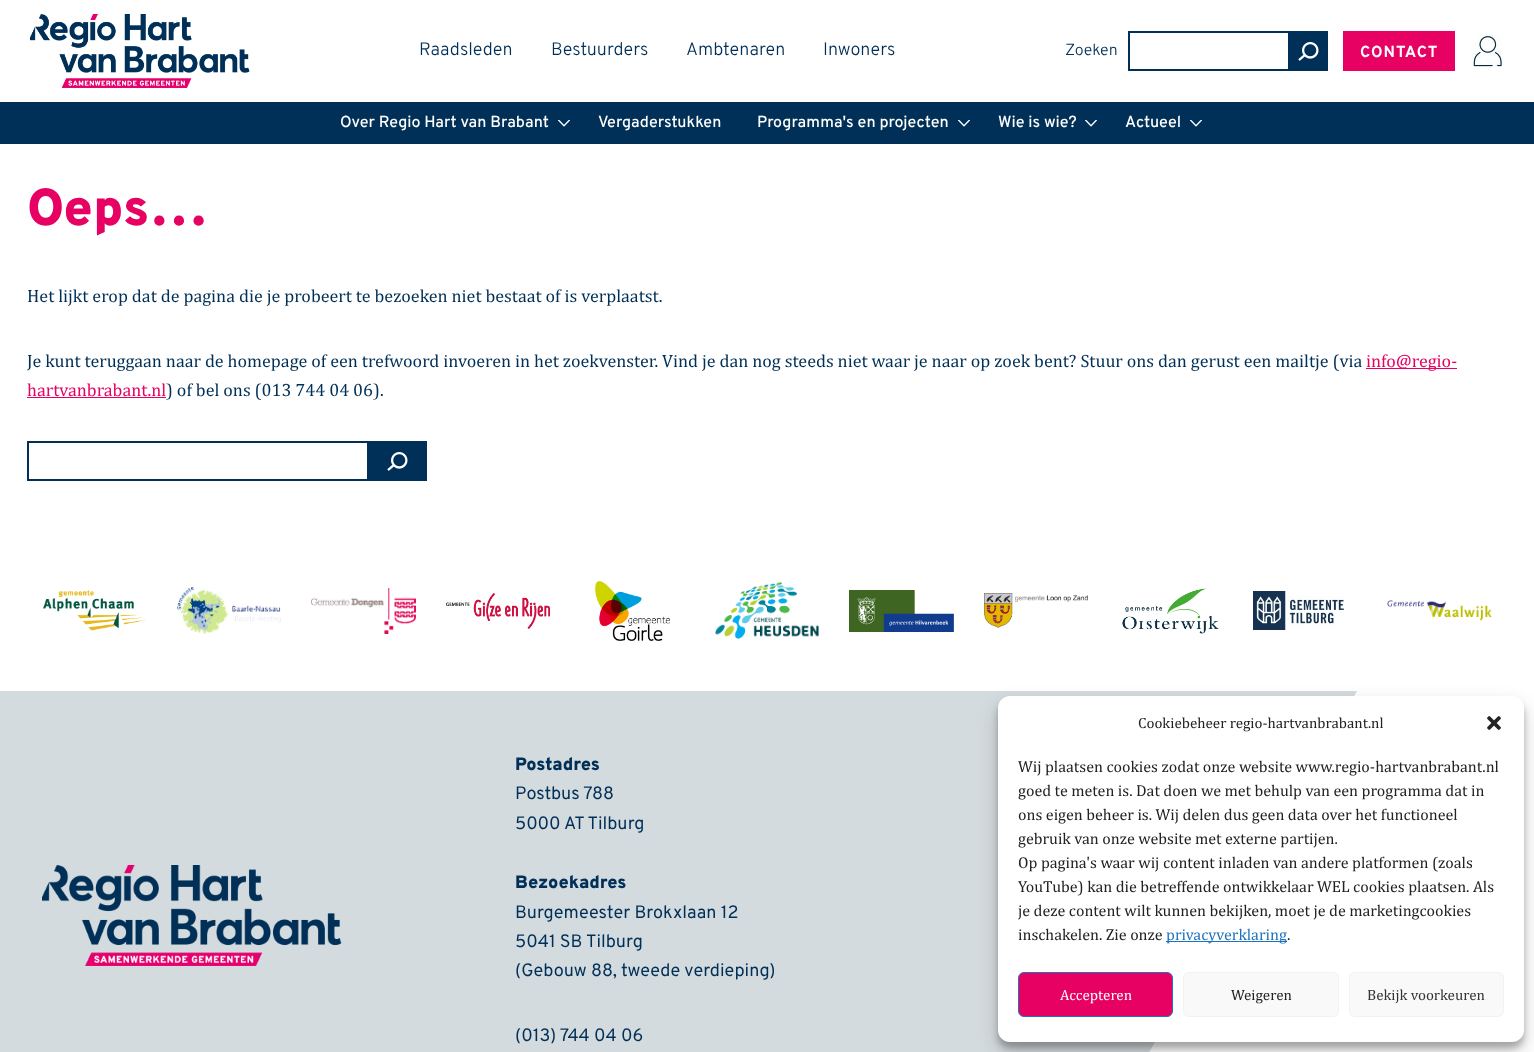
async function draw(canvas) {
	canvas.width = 1534;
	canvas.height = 1052;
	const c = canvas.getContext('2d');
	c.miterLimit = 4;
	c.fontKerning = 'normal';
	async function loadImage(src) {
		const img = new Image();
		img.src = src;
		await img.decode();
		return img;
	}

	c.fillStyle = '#fff';
	c.fillRect(0, 0, 1534, 1052);
	c.drawImage(await loadImage('img1.png'), 30, 14, 220, 74);
	c.font = '300 18px Overpass';
	c.fillStyle = '#003057';
	for (const [text, x, y] of [
		['Raadsleden', 419, 55],
		['Bestuurders', 551, 55],
		['Ambtenaren', 686, 55],
		['Inwoners', 823, 55],
	]) {
		c.fillText(text, x, y);
	}
	c.strokeStyle = '#003057';
	c.lineWidth = 2;
	c.strokeRect(1129, 32, 198, 38);
	c.font = '300 16px Overpass';
	c.fillText('Zoeken', 1065, 55);
	c.fillRect(1288, 33, 38, 36);
	c.drawImage(await loadImage('img2.png'), 1298, 42, 21, 19);
	c.fillStyle = '#e60162';
	c.fillRect(1343, 31, 112, 40);
	c.letterSpacing = '1px';
	c.font = 'bold 16px Overpass';
	c.fillStyle = '#fff';
	c.fillText('CONTACT', 1360, 57);
	c.drawImage(await loadImage('img3.png'), 1470, 34, 33, 34);
	c.fillStyle = '#003057';
	c.fillRect(0, 102, 1534, 42);
	c.letterSpacing = '0px';
	c.font = '500 16px Overpass';
	c.fillStyle = '#fff';
	c.fillText('Over Regio Hart van Brabant', 340, 127);
	c.drawImage(await loadImage('img4.png'), 558, 120, 12, 7);
	c.fillText('Vergaderstukken', 598, 127);
	c.fillText('Programma\'s en projecten', 757, 127);
	c.drawImage(await loadImage('img4.png'), 958, 120, 12, 7);
	c.fillText('Wie is wie?', 998, 127);
	c.drawImage(await loadImage('img4.png'), 1085, 120, 12, 7);
	c.fillText('Actueel', 1125, 127);
	c.drawImage(await loadImage('img4.png'), 1190, 120, 12, 7);
	c.font = '900 52px Overpass';
	c.fillStyle = '#e60162';
	c.fillText('Oeps…', 27, 225);
	c.font = '18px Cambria';
	c.fillStyle = '#003057';
	c.fillText('Het lijkt erop dat de pagina die je probeert te bezoeken niet bestaat of is verplaatst.', 27, 302);
	c.fillText('Je kunt teruggaan naar de homepage of een trefwoord invoeren in het zoekvenster. Vind je dan nog steeds niet waar je naar op zoek bent? Stuur ons dan gerust een mailtje (via', 27, 367);
	c.fillStyle = '#e60162';
	c.fillRect(1366, 368, 91, 1);
	c.fillText('info@regio-', 1366, 367);
	c.fillText('hartvanbrabant.nl', 27, 396);
	c.fillRect(27, 397, 139, 1);
	c.fillStyle = '#003057';
	c.fillText(') of bel ons (013 744 04 06).', 166, 396);
	c.strokeRect(28, 442, 398, 38);
	c.fillRect(367, 443, 58, 36);
	c.drawImage(await loadImage('img2.png'), 387, 452, 21, 19);
	c.drawImage(await loadImage('img5.png'), 43, 590, 103, 41);
	c.drawImage(await loadImage('img6.png'), 177, 587, 104, 47);
	c.drawImage(await loadImage('img7.png'), 311, 588, 105, 46);
	c.drawImage(await loadImage('img8.png'), 446, 593, 104, 36);
	c.drawImage(await loadImage('img9.png'), 595, 581, 75, 60);
	c.drawImage(await loadImage('img10.png'), 715, 582, 104, 57);
	c.drawImage(await loadImage('img11.png'), 849, 590, 105, 42);
	c.drawImage(await loadImage('img12.png'), 984, 593, 104, 35);
	c.drawImage(await loadImage('img13.png'), 1122, 588, 97, 46);
	c.drawImage(await loadImage('img14.png'), 1253, 591, 92, 39);
	c.drawImage(await loadImage('img15.png'), 1387, 600, 105, 21);
	c.fillStyle = '#d4dbdf';
	c.beginPath();
	c.moveTo(-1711, 691);
	c.lineTo(1357, 691);
	c.lineTo(1098, 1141);
	c.lineTo(-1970, 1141);
	c.closePath();
	c.fill();
	c.drawImage(await loadImage('img16.png'), 42, 865, 300, 101);
	c.font = '900 18px Overpass';
	c.fillStyle = '#003057';
	c.fillText('Postadres', 515, 770);
	c.font = '18px Overpass';
	c.fillText('Postbus 788', 515, 799);
	c.fillText('5000 AT Tilburg', 515, 829);
	c.font = '900 18px Overpass';
	c.fillText('Bezoekadres', 515, 888);
	c.font = '18px Overpass';
	for (const [text, x, y] of [
		['Burgemeester Brokxlaan 12', 515, 918],
		['5041 SB Tilburg', 515, 947],
		['(Gebouw 88, tweede verdieping)', 515, 976],
		['(013) 744 04 06', 515, 1041],
	]) {
		c.fillText(text, x, y);
	}
	c.fillStyle = '#0000003b';
	c.filter = 'blur(3px)';
	c.beginPath();
	c.roundRect(998, 702, 526, 346, 12);
	c.fill();
	c.filter = 'none';
	c.fillStyle = '#00000030';
	c.filter = 'blur(10px)';
	c.beginPath();
	c.roundRect(998, 706, 526, 346, 12);
	c.fill();
	c.filter = 'none';
	c.fillStyle = '#fff';
	c.beginPath();
	c.roundRect(998, 696, 526, 346, 12);
	c.fill();
	c.font = '15px Cambria';
	c.fillStyle = '#222';
	c.fillText('Cookiebeheer regio-hartvanbrabant.nl', 1138, 728);
	c.drawImage(await loadImage('img17.png'), 1487, 716, 14, 14);
	c.font = '16px Cambria';
	for (const [text, x, y] of [
		['Wij plaatsen cookies zodat onze website www.regio-hartvanbrabant.nl', 1018, 772],
		['goed te meten is. Dat doen we met behulp van een programma dat in', 1018, 796],
		['ons eigen beheer is. Wij delen dus geen data over het functioneel', 1018, 820],
		['gebruik van onze website met externe partijen.', 1018, 844],
		['Op pagina\'s waar wij content inladen van andere platformen (zoals', 1018, 868],
		['YouTube) kan die betreffende ontwikkelaar WEL cookies plaatsen. Als', 1018, 892],
		['je deze content wilt kunnen bekijken, moet je de marketingcookies', 1018, 916],
		['inschakelen. Zie onze', 1018, 940],
	]) {
		c.fillText(text, x, y);
	}
	c.fillStyle = '#1e73be';
	c.fillRect(1166, 941, 121, 1);
	c.fillText('privacyverklaring', 1166, 940);
	c.fillStyle = '#222';
	c.fillText('.', 1287, 940);
	c.fillStyle = '#e60162';
	c.beginPath();
	c.roundRect(1018.5, 972.5, 154, 44, 5.5);
	c.fill();
	c.strokeStyle = '#1e73be';
	c.lineWidth = 1;
	c.stroke();
	c.font = '15px Cambria';
	c.fillStyle = '#fff';
	c.fillText('Accepteren', 1060, 1000);
	c.fillStyle = '#f9f9f9';
	c.beginPath();
	c.roundRect(1183.5, 972.5, 155, 44, 5.5);
	c.fill();
	c.strokeStyle = '#f2f2f2';
	c.stroke();
	c.fillStyle = '#222';
	c.fillText('Weigeren', 1231, 1000);
	c.fillStyle = '#f9f9f9';
	c.beginPath();
	c.roundRect(1349.5, 972.5, 154, 44, 5.5);
	c.fill();
	c.stroke();
	c.fillStyle = '#333';
	c.fillText('Bekijk voorkeuren', 1367, 1000);
}

draw(document.querySelector('canvas'));
